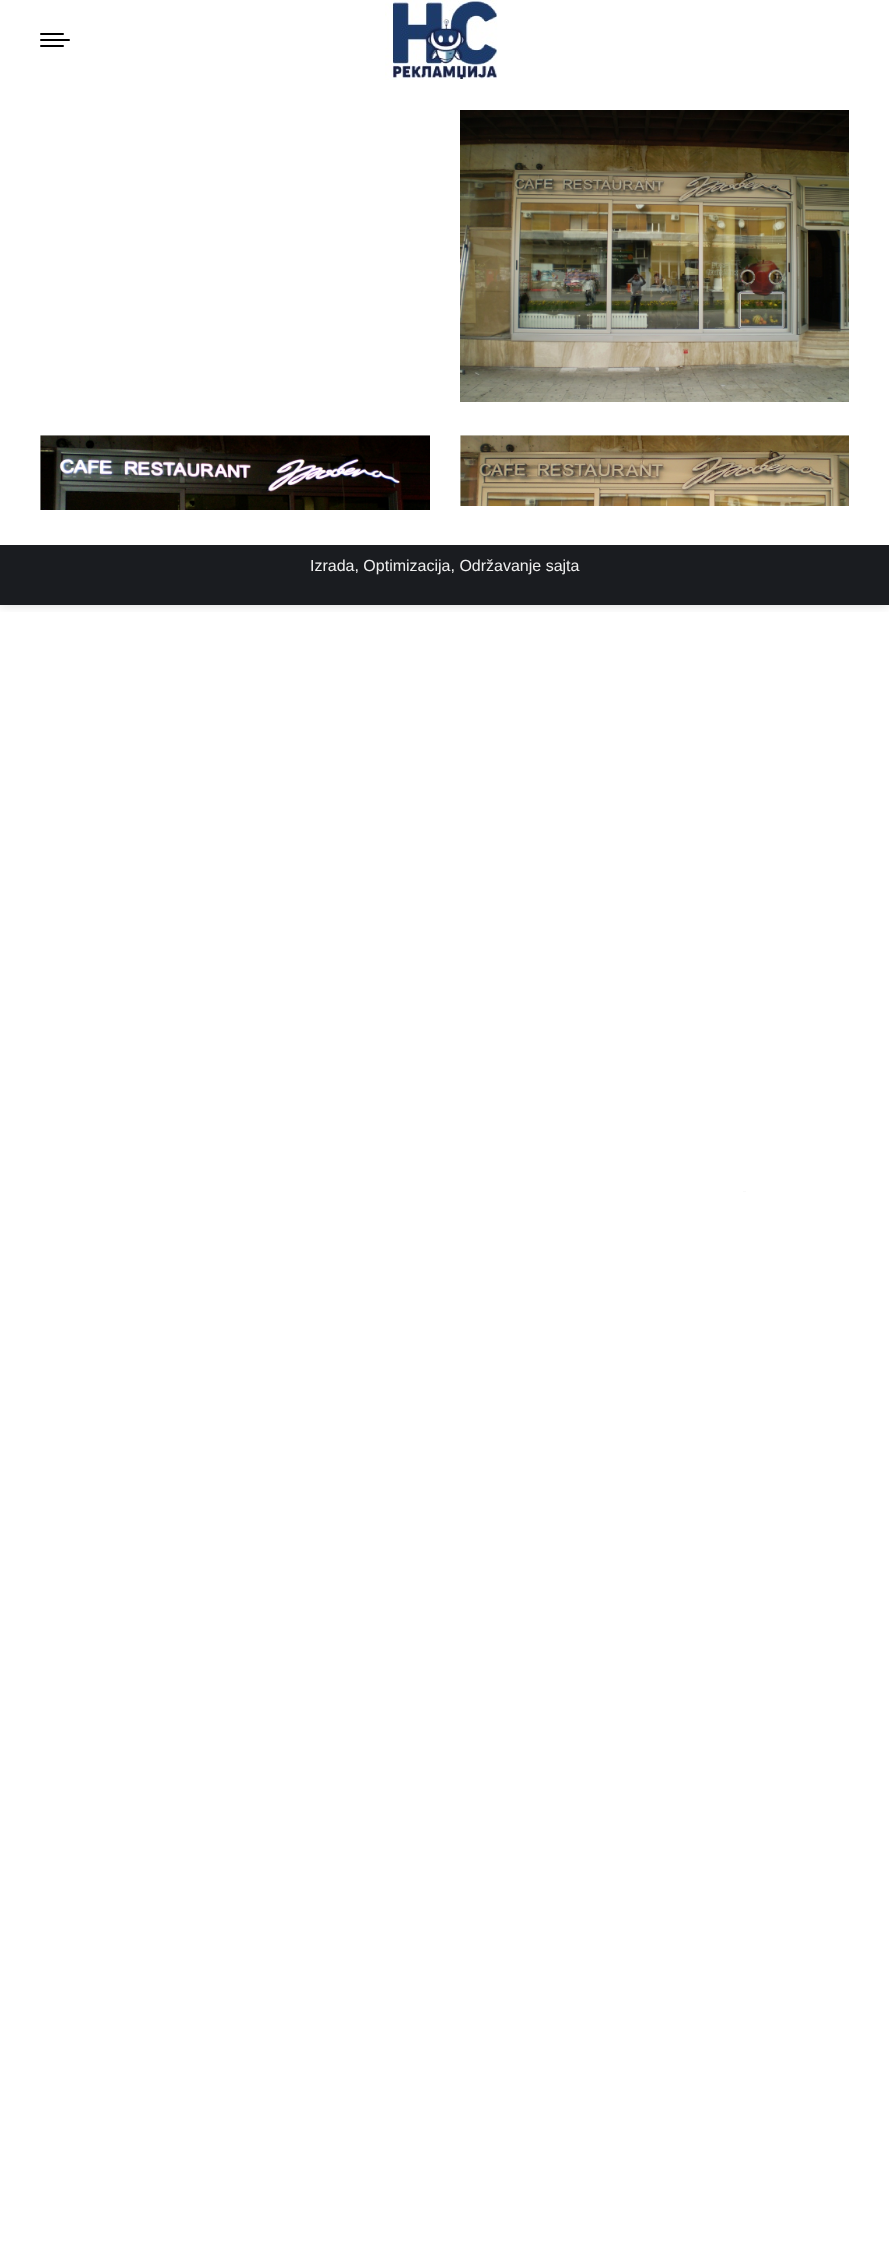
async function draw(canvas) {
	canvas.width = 889;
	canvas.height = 2258;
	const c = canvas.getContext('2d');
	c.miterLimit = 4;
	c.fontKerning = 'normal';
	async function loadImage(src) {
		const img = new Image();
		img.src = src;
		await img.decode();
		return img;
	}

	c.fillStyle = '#fff';
	c.fillRect(0, 0, 889, 2258);
	c.drawImage(await loadImage('img1.png'), 743, 1191, 3, 1);
	c.save();
	c.beginPath();
	c.rect(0, 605, 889, 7);
	c.clip();
	c.fillStyle = '#00000026';
	c.filter = 'blur(6px)';
	c.beginPath();
	c.rect(0, 0, 889, 605);
	c.fill();
	c.filter = 'none';
	c.restore();
	c.fillStyle = '#000';
	c.beginPath();
	c.roundRect(40, 33, 24, 2, 1);
	c.fill();
	c.beginPath();
	c.roundRect(40, 39, 30, 2, 1);
	c.fill();
	c.beginPath();
	c.roundRect(40, 45, 24, 2, 1);
	c.fill();
	c.drawImage(await loadImage('img2.png'), 385, 0, 113, 80);
	c.drawImage(await loadImage('img3.png'), 40, 435, 390, 75);
	c.drawImage(await loadImage('img4.png'), 460, 110, 389, 292);
	c.drawImage(await loadImage('img5.png'), 460, 435, 389, 71);
	c.fillStyle = '#1a1c20';
	c.fillRect(0, 545, 889, 60);
	c.font = '16px Liberation Sans';
	c.fillStyle = '#eee';
	c.fillText('Izrada, Optimizacija, Održavanje sajta', 310, 571);
}

draw(document.querySelector('canvas'));
